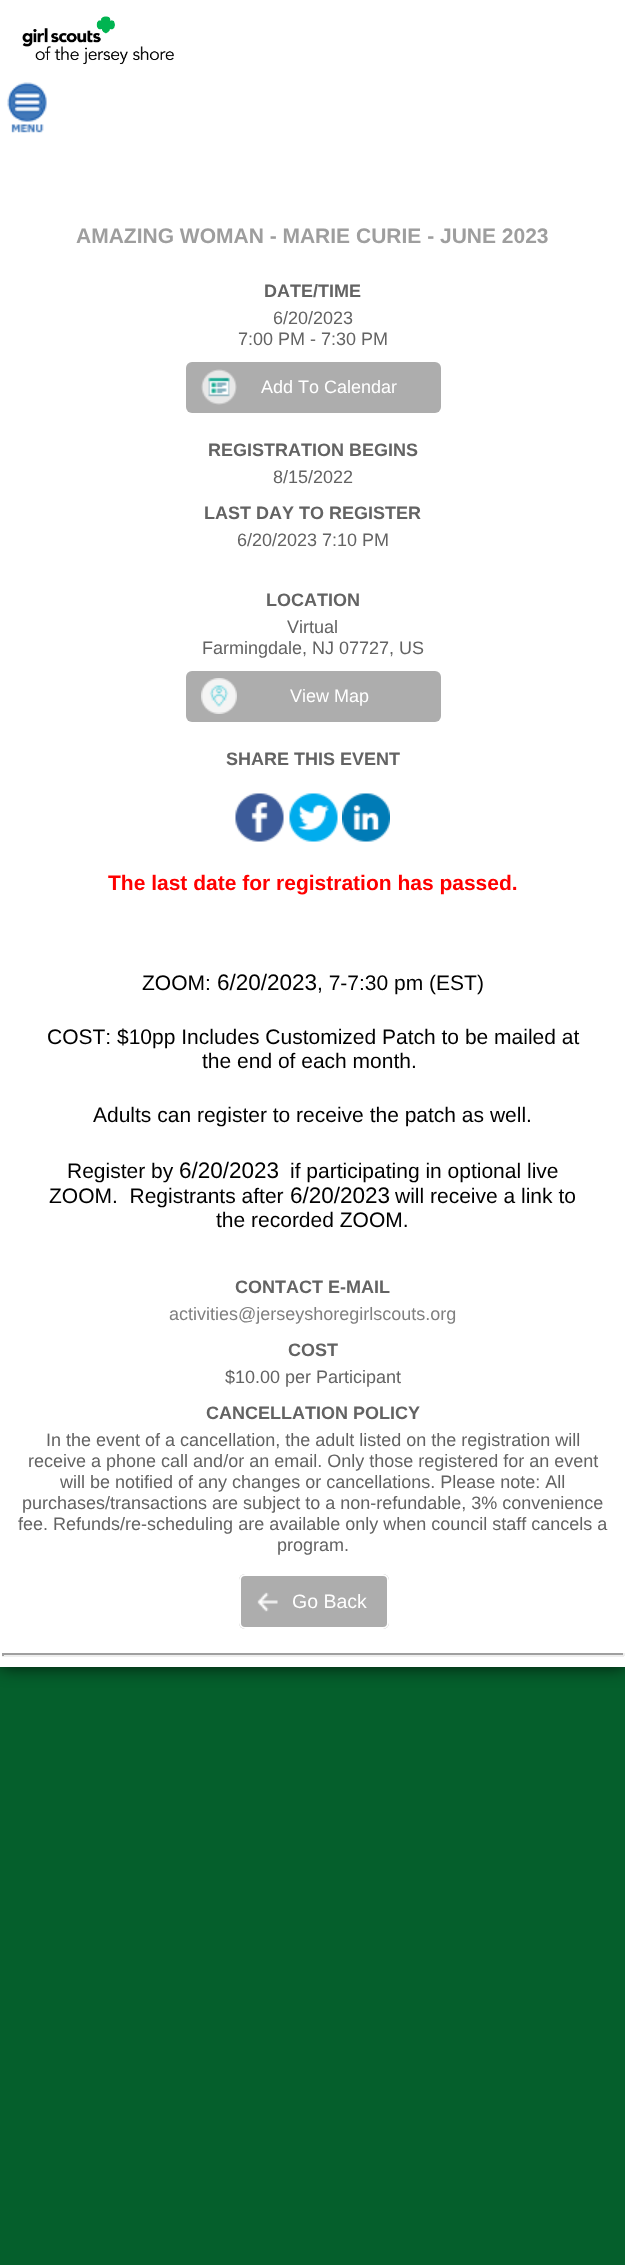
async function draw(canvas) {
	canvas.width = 625;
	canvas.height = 2265;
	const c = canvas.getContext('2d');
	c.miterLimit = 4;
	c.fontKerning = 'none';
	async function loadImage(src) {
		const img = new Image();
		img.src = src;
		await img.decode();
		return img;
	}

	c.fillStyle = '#055f2c';
	c.fillRect(0, 0, 625, 2265);
	c.fillStyle = '#000000bf';
	c.filter = 'blur(9px)';
	c.beginPath();
	c.rect(0, 0, 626, 1667);
	c.fill();
	c.filter = 'none';
	c.fillStyle = '#fff';
	c.fillRect(0, 138, 625, 1529);
	c.fillRect(0, 0, 625, 138);
	c.drawImage(await loadImage('img1.png'), 22, 16, 152, 49);
	c.drawImage(await loadImage('img2.png'), 7, 82, 40, 51);
	c.font = 'bold 21px Liberation Sans';
	c.fillStyle = '#9e9e9e';
	c.fillText('AMAZING WOMAN - MARIE CURIE - JUNE 2023', 76, 243);
	c.font = 'bold 18px Liberation Sans';
	c.fillStyle = '#636363';
	c.fillText('DATE/TIME', 264, 297);
	c.font = '18px Liberation Sans';
	c.fillText('6/20/2023', 273, 324);
	c.fillText('7:00 PM - 7:30 PM', 238, 345);
	c.fillStyle = '#adadad';
	c.beginPath();
	c.roundRect(186, 362, 255, 51, 6);
	c.fill();
	c.drawImage(await loadImage('img3.png'), 201, 369, 36, 36);
	c.fillStyle = '#fff';
	c.fillText('Add To Calendar', 261, 393);
	c.font = 'bold 18px Liberation Sans';
	c.fillStyle = '#636363';
	c.fillText('REGISTRATION BEGINS', 208, 456);
	c.font = '18px Liberation Sans';
	c.fillText('8/15/2022', 273, 483);
	c.font = 'bold 18px Liberation Sans';
	c.fillText('LAST DAY TO REGISTER', 204, 519);
	c.font = '18px Liberation Sans';
	c.fillText('6/20/2023 7:10 PM', 237, 546);
	c.font = 'bold 18px Liberation Sans';
	c.fillText('LOCATION', 266, 606);
	c.font = '18px Liberation Sans';
	c.fillText('Virtual', 287, 633);
	c.fillText('Farmingdale, NJ 07727, US', 202, 654);
	c.fillStyle = '#adadad';
	c.beginPath();
	c.roundRect(186, 671, 255, 51, 6);
	c.fill();
	c.drawImage(await loadImage('img4.png'), 201, 678, 36, 36);
	c.fillStyle = '#fff';
	c.fillText('View Map', 290, 702);
	c.font = 'bold 18px Liberation Sans';
	c.fillStyle = '#636363';
	c.fillText('SHARE THIS EVENT', 226, 765);
	c.drawImage(await loadImage('img5.png'), 235, 793, 49, 49);
	c.drawImage(await loadImage('img6.png'), 289, 793, 49, 49);
	c.drawImage(await loadImage('img7.png'), 342, 793, 48, 49);
	c.font = 'bold 21px Liberation Sans';
	c.fillStyle = '#f00';
	c.fillText('The last date for registration has passed.', 108, 890);
	c.font = '21px Liberation Sans';
	c.fillStyle = '#000';
	c.fillText('ZOOM:', 142, 990);
	c.font = '22.5px Liberation Sans';
	c.fillText('6/20/2023', 217, 990);
	c.font = '21px Liberation Sans';
	for (const [text, x, y] of [
		[', 7-7:30 pm (EST)', 317, 990],
		['COST: $10pp Includes Customized Patch to be mailed at', 47, 1044],
		['the end of each month.', 202, 1068],
		['Adults can register to receive the patch as well.', 93, 1122],
		['Register by', 67, 1178],
	]) {
		c.fillText(text, x, y);
	}
	c.font = '22.5px Liberation Sans';
	c.fillText('6/20/2023', 179, 1178);
	c.font = '21px Liberation Sans';
	c.fillText('if participating in optional live', 290, 1178);
	c.fillText('ZOOM.  Registrants after', 49, 1203);
	c.font = '22.5px Liberation Sans';
	c.fillText('6/20/2023', 290, 1203);
	c.font = '21px Liberation Sans';
	c.fillText('will receive a link to', 395, 1203);
	c.fillText('the recorded ZOOM.', 216, 1227);
	c.font = 'bold 18px Liberation Sans';
	c.fillStyle = '#636363';
	c.fillText('CONTACT E-MAIL', 235, 1293);
	c.font = '18px Liberation Sans';
	c.fillStyle = '#808080';
	c.fillText('activities@jerseyshoregirlscouts.org', 169, 1320);
	c.font = 'bold 18px Liberation Sans';
	c.fillStyle = '#636363';
	c.fillText('COST', 288, 1356);
	c.font = '18px Liberation Sans';
	c.fillText('$10.00 per Participant', 225, 1383);
	c.font = 'bold 18px Liberation Sans';
	c.fillText('CANCELLATION POLICY', 206, 1419);
	c.font = '18px Liberation Sans';
	for (const [text, x, y] of [
		['In the event of a cancellation, the adult listed on the registration will', 46, 1446],
		['receive a phone call and/or an email. Only those registered for an event', 28, 1467],
		['will be notified of any changes or cancellations. Please note: All', 60, 1488],
		['purchases/transactions are subject to a non-refundable, 3% convenience', 22, 1509],
		['fee. Refunds/re-scheduling are available only when council staff cancels a', 18, 1530],
		['program.', 277, 1551],
	]) {
		c.fillText(text, x, y);
	}
	c.fillStyle = '#adadad';
	c.beginPath();
	c.roundRect(239, 1574, 150, 55, 6);
	c.fill();
	c.drawImage(await loadImage('img8.png'), 257, 1592, 21, 20);
	c.beginPath();
	c.roundRect(240, 1575, 148, 53, 5);
	c.strokeStyle = '#fff';
	c.lineWidth = 2;
	c.stroke();
	c.font = '19.5px Liberation Sans';
	c.fillStyle = '#fff';
	c.fillText('Go Back', 292, 1608);
	for (const [x, y, w, h, color] of [
		[2, 1653, 622, 2, '#9f9f9f'],
		[623, 1653, 2, 3, '#eee'],
		[2, 1655, 622, 2, '#eee'],
		[2, 1653, 2, 3, '#9f9f9f'],
	]) {
		c.fillStyle = color;
		c.fillRect(x, y, w, h);
	}
}

draw(document.querySelector('canvas'));
